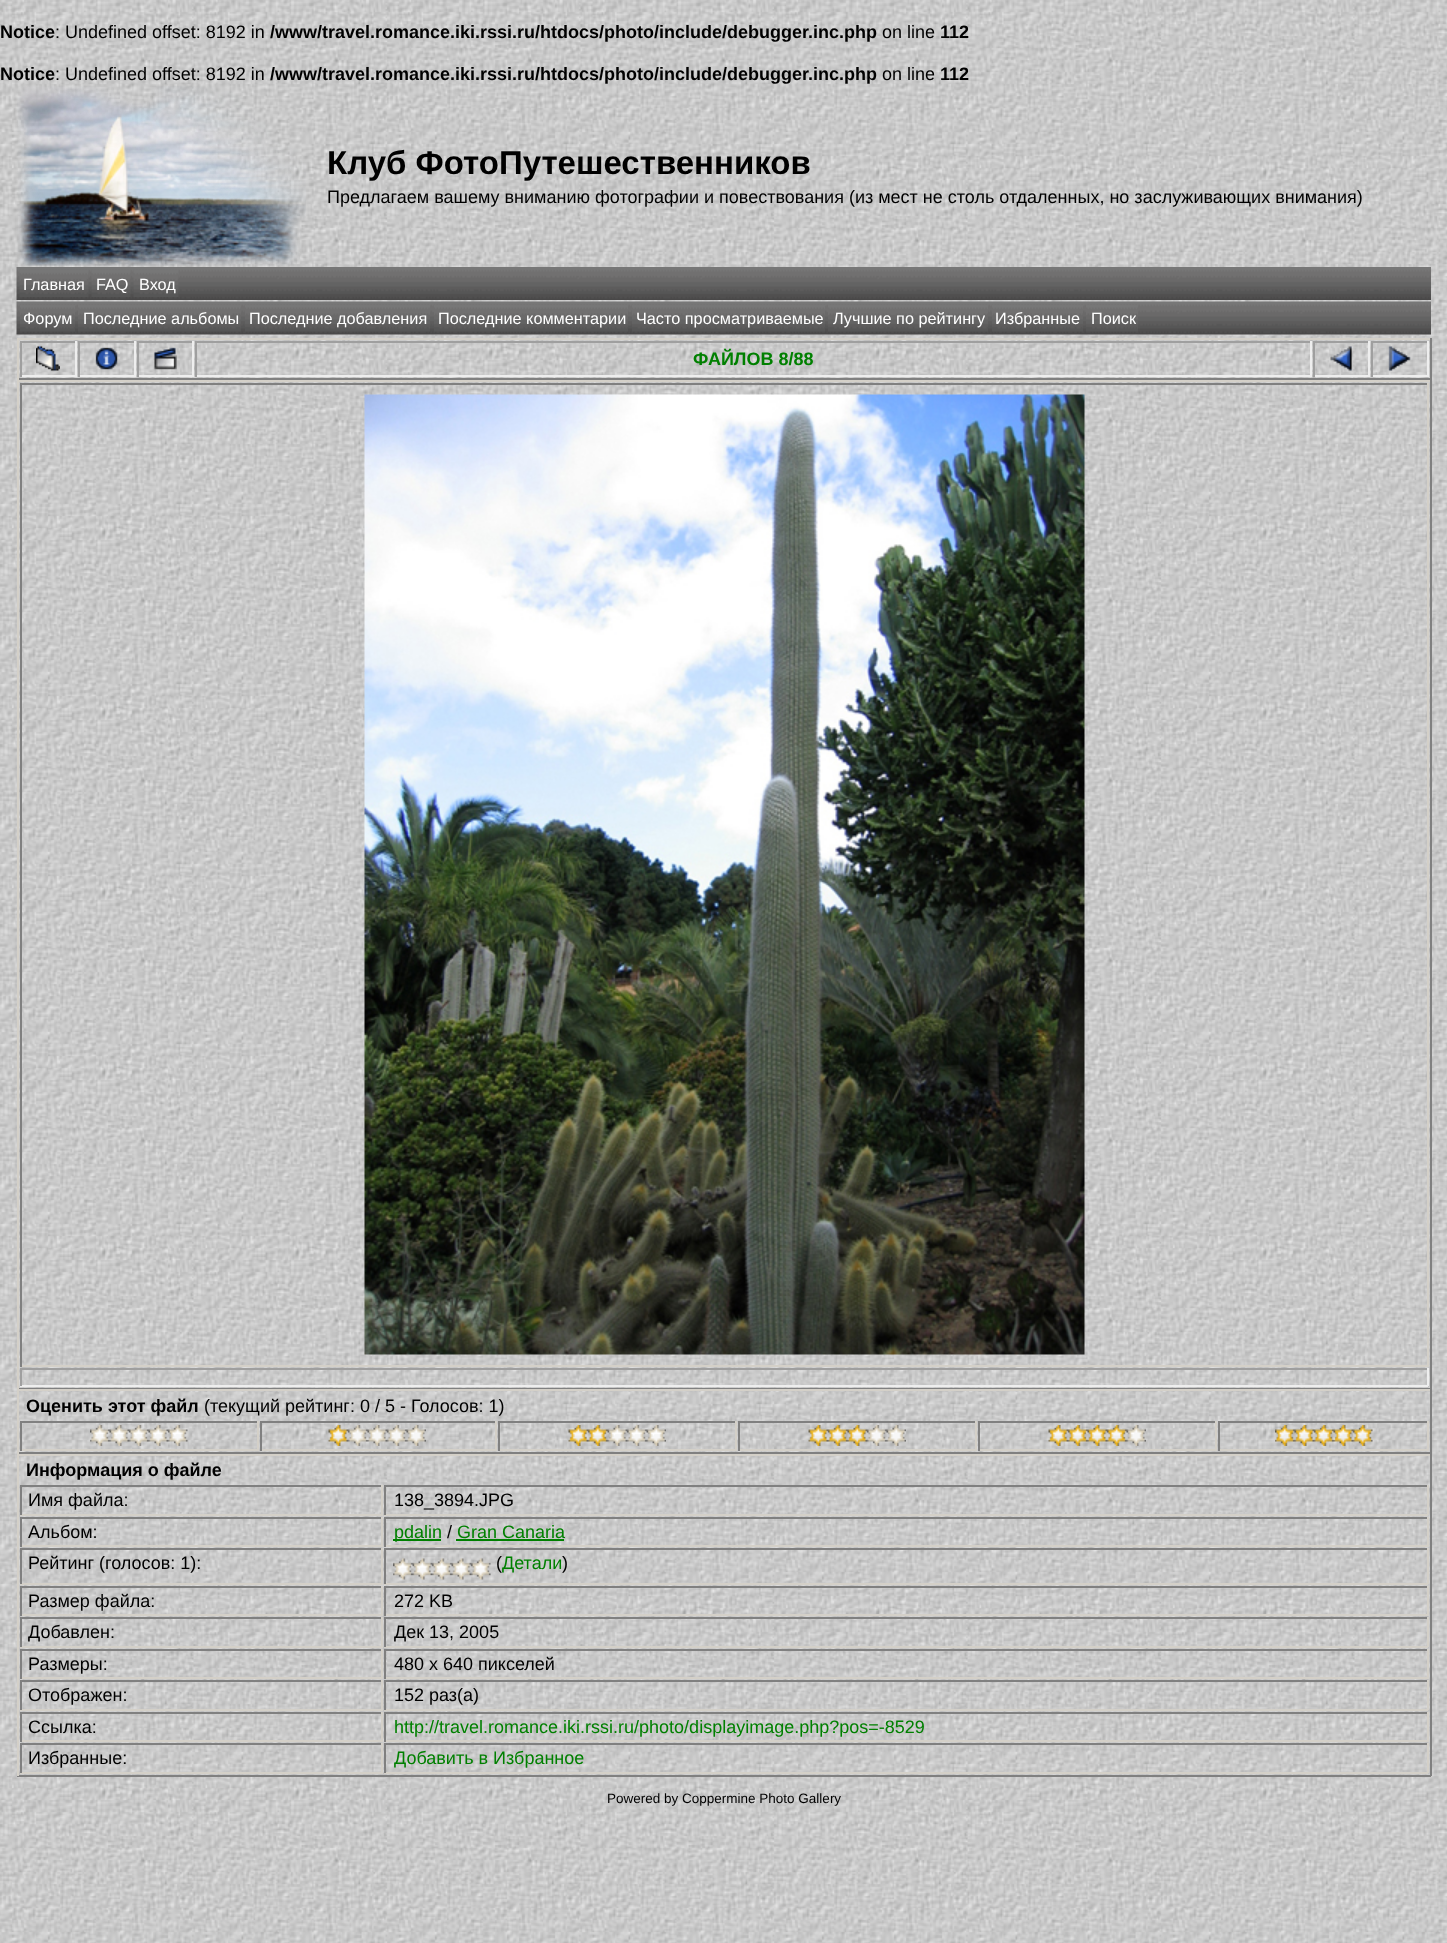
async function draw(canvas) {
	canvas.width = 1447;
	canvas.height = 1943;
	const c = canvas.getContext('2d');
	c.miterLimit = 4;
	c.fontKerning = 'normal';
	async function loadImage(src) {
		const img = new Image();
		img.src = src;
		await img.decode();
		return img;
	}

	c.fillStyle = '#fff';
	c.fillRect(0, 0, 1447, 1943);
	c.drawImage(await loadImage('img1.png'), 0, 0, 1447, 1943);
	c.font = 'bold 18px Liberation Sans';
	c.fillStyle = '#000';
	c.fillText('Notice', 0, 38);
	c.font = '18px Liberation Sans';
	c.fillText(': Undefined offset: 8192 in', 55, 38);
	c.font = 'bold 18px Liberation Sans';
	c.fillText('/www/travel.romance.iki.rssi.ru/htdocs/photo/include/debugger.inc.php', 270, 38);
	c.font = '18px Liberation Sans';
	c.fillText('on line', 882, 38);
	c.font = 'bold 18px Liberation Sans';
	c.fillText('112', 940, 38);
	c.fillText('Notice', 0, 80);
	c.font = '18px Liberation Sans';
	c.fillText(': Undefined offset: 8192 in', 55, 80);
	c.font = 'bold 18px Liberation Sans';
	c.fillText('/www/travel.romance.iki.rssi.ru/htdocs/photo/include/debugger.inc.php', 270, 80);
	c.font = '18px Liberation Sans';
	c.fillText('on line', 882, 80);
	c.font = 'bold 18px Liberation Sans';
	c.fillText('112', 940, 80);
	c.drawImage(await loadImage('img2.png'), 17, 86, 289, 180);
	c.font = 'bold 33px Liberation Sans';
	c.fillText('Клуб ФотоПутешественников', 327, 174);
	c.font = '18px Liberation Sans';
	c.fillText('Предлагаем вашему вниманию фотографии и повествования (из мест не столь отдаленных, но заслуживающих внимания)', 327, 203);
	c.drawImage(await loadImage('img3.png'), 16, 267, 1415, 33);
	c.drawImage(await loadImage('img4.png'), 19, 270, 70, 27);
	c.font = '16.25px Liberation Sans';
	c.fillStyle = '#fff';
	c.fillText('Главная', 23, 290);
	c.drawImage(await loadImage('img5.png'), 91, 270, 40, 27);
	c.fillText('FAQ', 96, 290);
	c.drawImage(await loadImage('img6.png'), 133, 270, 46, 27);
	c.fillText('Вход', 139, 290);
	c.drawImage(await loadImage('img7.png'), 16, 301, 1415, 34);
	c.drawImage(await loadImage('img8.png'), 20, 305, 55, 27);
	c.fillText('Форум', 23, 324);
	c.drawImage(await loadImage('img9.png'), 78, 305, 163, 27);
	c.fillText('Последние альбомы', 83, 324);
	c.drawImage(await loadImage('img10.png'), 245, 305, 185, 27);
	c.fillText('Последние добавления', 249, 324);
	c.drawImage(await loadImage('img11.png'), 434, 305, 194, 27);
	c.fillText('Последние комментарии', 438, 324);
	c.drawImage(await loadImage('img12.png'), 632, 305, 193, 27);
	c.fillText('Часто просматриваемые', 636, 324);
	c.drawImage(await loadImage('img13.png'), 828, 305, 160, 27);
	c.fillText('Лучшие по рейтингу', 833, 324);
	c.drawImage(await loadImage('img14.png'), 992, 305, 91, 27);
	c.fillText('Избранные', 995, 324);
	c.drawImage(await loadImage('img15.png'), 1086, 305, 52, 27);
	c.fillText('Поиск', 1091, 324);
	for (const [x, y, w, h, color] of [
		[17, 338, 1414, 2, '#d4d0c8'],
		[1430, 338, 2, 42, '#808080'],
		[17, 378, 1414, 2, '#808080'],
		[17, 338, 2, 42, '#d4d0c8'],
		[20, 341, 57, 2, '#9f9f9f'],
		[75, 341, 2, 36, '#eee'],
		[20, 375, 57, 2, '#eee'],
		[20, 341, 2, 36, '#9f9f9f'],
	]) {
		c.fillStyle = color;
		c.fillRect(x, y, w, h);
	}
	c.drawImage(await loadImage('img16.png'), 36, 346, 24, 25);
	for (const [x, y, w, h, color] of [
		[78, 341, 57, 2, '#9f9f9f'],
		[134, 341, 2, 36, '#eee'],
		[78, 375, 57, 2, '#eee'],
		[78, 341, 2, 36, '#9f9f9f'],
	]) {
		c.fillStyle = color;
		c.fillRect(x, y, w, h);
	}
	c.drawImage(await loadImage('img17.png'), 95, 347, 23, 23);
	for (const [x, y, w, h, color] of [
		[137, 341, 57, 2, '#9f9f9f'],
		[192, 341, 2, 36, '#eee'],
		[137, 375, 57, 2, '#eee'],
		[137, 341, 2, 36, '#9f9f9f'],
	]) {
		c.fillStyle = color;
		c.fillRect(x, y, w, h);
	}
	c.drawImage(await loadImage('img18.png'), 154, 347, 23, 23);
	for (const [x, y, w, h, color] of [
		[195, 341, 1116, 2, '#9f9f9f'],
		[1310, 341, 2, 36, '#eee'],
		[195, 375, 1116, 2, '#eee'],
		[195, 341, 2, 36, '#9f9f9f'],
	]) {
		c.fillStyle = color;
		c.fillRect(x, y, w, h);
	}
	c.font = 'bold 18px Liberation Sans';
	c.fillStyle = '#008000';
	c.fillText('ФАЙЛОВ 8/88', 693, 365);
	for (const [x, y, w, h, color] of [
		[1313, 341, 57, 2, '#9f9f9f'],
		[1368, 341, 2, 36, '#eee'],
		[1313, 375, 57, 2, '#eee'],
		[1313, 341, 2, 36, '#9f9f9f'],
	]) {
		c.fillStyle = color;
		c.fillRect(x, y, w, h);
	}
	c.drawImage(await loadImage('img19.png'), 1330, 346, 22, 25);
	for (const [x, y, w, h, color] of [
		[1371, 341, 57, 2, '#9f9f9f'],
		[1427, 341, 2, 36, '#eee'],
		[1371, 375, 57, 2, '#eee'],
		[1371, 341, 2, 36, '#9f9f9f'],
	]) {
		c.fillStyle = color;
		c.fillRect(x, y, w, h);
	}
	c.drawImage(await loadImage('img20.png'), 1388, 346, 23, 25);
	for (const [x, y, w, h, color] of [
		[17, 380, 1414, 2, '#d4d0c8'],
		[1430, 380, 2, 1009, '#808080'],
		[17, 1388, 1414, 1, '#808080'],
		[17, 380, 2, 1009, '#d4d0c8'],
		[20, 383, 1408, 2, '#808080'],
		[1427, 383, 2, 984, '#d4d0c8'],
		[20, 1365, 1408, 2, '#d4d0c8'],
		[20, 383, 2, 984, '#808080'],
	]) {
		c.fillStyle = color;
		c.fillRect(x, y, w, h);
	}
	c.drawImage(await loadImage('img21.png'), 364, 394, 721, 961);
	for (const [x, y, w, h, color] of [
		[20, 1368, 1408, 2, '#9f9f9f'],
		[1427, 1368, 2, 18, '#eee'],
		[20, 1385, 1408, 2, '#eee'],
		[20, 1368, 2, 18, '#9f9f9f'],
		[17, 1389, 1414, 2, '#d4d0c8'],
		[1430, 1389, 2, 65, '#808080'],
		[17, 1452, 1414, 2, '#808080'],
		[17, 1389, 2, 65, '#d4d0c8'],
	]) {
		c.fillStyle = color;
		c.fillRect(x, y, w, h);
	}
	c.fillStyle = '#000';
	c.fillText('Оценить этот файл', 26, 1412);
	c.font = '18px Liberation Sans';
	c.fillText('(текущий рейтинг: 0 / 5 - Голосов: 1)', 204, 1412);
	for (const [x, y, w, h, color] of [
		[20, 1421, 238, 2, '#808080'],
		[257, 1421, 2, 30, '#d4d0c8'],
		[20, 1449, 238, 2, '#d4d0c8'],
		[20, 1421, 2, 30, '#808080'],
	]) {
		c.fillStyle = color;
		c.fillRect(x, y, w, h);
	}
	c.drawImage(await loadImage('img22.png'), 90, 1425, 98, 21);
	for (const [x, y, w, h, color] of [
		[260, 1421, 237, 2, '#808080'],
		[495, 1421, 2, 30, '#d4d0c8'],
		[260, 1449, 237, 2, '#d4d0c8'],
		[260, 1421, 2, 30, '#808080'],
	]) {
		c.fillStyle = color;
		c.fillRect(x, y, w, h);
	}
	c.drawImage(await loadImage('img23.png'), 328, 1425, 98, 21);
	for (const [x, y, w, h, color] of [
		[498, 1421, 239, 2, '#808080'],
		[735, 1421, 2, 30, '#d4d0c8'],
		[498, 1449, 239, 2, '#d4d0c8'],
		[498, 1421, 2, 30, '#808080'],
	]) {
		c.fillStyle = color;
		c.fillRect(x, y, w, h);
	}
	c.drawImage(await loadImage('img24.png'), 568, 1425, 98, 21);
	for (const [x, y, w, h, color] of [
		[738, 1421, 239, 2, '#808080'],
		[975, 1421, 2, 30, '#d4d0c8'],
		[738, 1449, 239, 2, '#d4d0c8'],
		[738, 1421, 2, 30, '#808080'],
	]) {
		c.fillStyle = color;
		c.fillRect(x, y, w, h);
	}
	c.drawImage(await loadImage('img25.png'), 808, 1425, 98, 21);
	for (const [x, y, w, h, color] of [
		[978, 1421, 239, 2, '#808080'],
		[1215, 1421, 2, 30, '#d4d0c8'],
		[978, 1449, 239, 2, '#d4d0c8'],
		[978, 1421, 2, 30, '#808080'],
	]) {
		c.fillStyle = color;
		c.fillRect(x, y, w, h);
	}
	c.drawImage(await loadImage('img26.png'), 1048, 1425, 98, 21);
	for (const [x, y, w, h, color] of [
		[1218, 1421, 210, 2, '#808080'],
		[1427, 1421, 2, 30, '#d4d0c8'],
		[1218, 1449, 210, 2, '#d4d0c8'],
		[1218, 1421, 2, 30, '#808080'],
	]) {
		c.fillStyle = color;
		c.fillRect(x, y, w, h);
	}
	c.drawImage(await loadImage('img27.png'), 1275, 1425, 98, 21);
	for (const [x, y, w, h, color] of [
		[17, 1454, 1414, 2, '#d4d0c8'],
		[1430, 1454, 2, 322, '#808080'],
		[17, 1775, 1414, 2, '#808080'],
		[17, 1454, 2, 322, '#d4d0c8'],
	]) {
		c.fillStyle = color;
		c.fillRect(x, y, w, h);
	}
	c.font = 'bold 18px Liberation Sans';
	c.fillStyle = '#000';
	c.fillText('Информация о файле', 26, 1476);
	for (const [x, y, w, h, color] of [
		[20, 1485, 363, 2, '#808080'],
		[381, 1485, 2, 30, '#d4d0c8'],
		[20, 1514, 363, 2, '#d4d0c8'],
		[20, 1485, 2, 30, '#808080'],
	]) {
		c.fillStyle = color;
		c.fillRect(x, y, w, h);
	}
	c.font = '18px Liberation Sans';
	c.fillStyle = '#000';
	c.fillText('Имя файла:', 28, 1506);
	for (const [x, y, w, h, color] of [
		[384, 1485, 1044, 2, '#808080'],
		[1427, 1485, 2, 30, '#d4d0c8'],
		[384, 1514, 1044, 2, '#d4d0c8'],
		[384, 1485, 2, 30, '#808080'],
	]) {
		c.fillStyle = color;
		c.fillRect(x, y, w, h);
	}
	c.fillStyle = '#000';
	c.fillText('138_3894.JPG', 394, 1506);
	for (const [x, y, w, h, color] of [
		[20, 1517, 363, 2, '#808080'],
		[381, 1517, 2, 30, '#d4d0c8'],
		[20, 1545, 363, 2, '#d4d0c8'],
		[20, 1517, 2, 30, '#808080'],
	]) {
		c.fillStyle = color;
		c.fillRect(x, y, w, h);
	}
	c.fillStyle = '#000';
	c.fillText('Альбом:', 28, 1538);
	for (const [x, y, w, h, color] of [
		[384, 1517, 1044, 2, '#808080'],
		[1427, 1517, 2, 30, '#d4d0c8'],
		[384, 1545, 1044, 2, '#d4d0c8'],
		[384, 1517, 2, 30, '#808080'],
		[393, 1539, 48, 2, '#008000'],
	]) {
		c.fillStyle = color;
		c.fillRect(x, y, w, h);
	}
	c.fillText('pdalin', 394, 1538);
	c.fillStyle = '#000';
	c.fillText('/', 447, 1538);
	c.fillStyle = '#008000';
	c.fillText('Gran Canaria', 457, 1538);
	for (const [x, y, w, h, color] of [
		[456, 1539, 108, 2, '#008000'],
		[20, 1548, 363, 2, '#808080'],
		[381, 1548, 2, 36, '#d4d0c8'],
		[20, 1583, 363, 2, '#d4d0c8'],
		[20, 1548, 2, 36, '#808080'],
	]) {
		c.fillStyle = color;
		c.fillRect(x, y, w, h);
	}
	c.fillStyle = '#000';
	c.fillText('Рейтинг (голосов: 1):', 28, 1569);
	for (const [x, y, w, h, color] of [
		[384, 1548, 1044, 2, '#808080'],
		[1427, 1548, 2, 36, '#d4d0c8'],
		[384, 1583, 1044, 2, '#d4d0c8'],
		[384, 1548, 2, 36, '#808080'],
	]) {
		c.fillStyle = color;
		c.fillRect(x, y, w, h);
	}
	c.drawImage(await loadImage('img28.png'), 393, 1558, 98, 22);
	c.fillStyle = '#000';
	c.fillText('(', 496, 1569);
	c.fillStyle = '#008000';
	c.fillText('Детали', 502, 1569);
	c.fillStyle = '#000';
	c.fillText(')', 562, 1569);
	for (const [x, y, w, h, color] of [
		[20, 1586, 363, 2, '#808080'],
		[381, 1586, 2, 30, '#d4d0c8'],
		[20, 1614, 363, 2, '#d4d0c8'],
		[20, 1586, 2, 30, '#808080'],
	]) {
		c.fillStyle = color;
		c.fillRect(x, y, w, h);
	}
	c.fillStyle = '#000';
	c.fillText('Размер файла:', 28, 1607);
	for (const [x, y, w, h, color] of [
		[384, 1586, 1044, 2, '#808080'],
		[1427, 1586, 2, 30, '#d4d0c8'],
		[384, 1614, 1044, 2, '#d4d0c8'],
		[384, 1586, 2, 30, '#808080'],
	]) {
		c.fillStyle = color;
		c.fillRect(x, y, w, h);
	}
	c.fillStyle = '#000';
	c.fillText('272 KB', 394, 1607);
	for (const [x, y, w, h, color] of [
		[20, 1617, 363, 2, '#808080'],
		[381, 1617, 2, 30, '#d4d0c8'],
		[20, 1646, 363, 2, '#d4d0c8'],
		[20, 1617, 2, 30, '#808080'],
	]) {
		c.fillStyle = color;
		c.fillRect(x, y, w, h);
	}
	c.fillStyle = '#000';
	c.fillText('Добавлен:', 28, 1638);
	for (const [x, y, w, h, color] of [
		[384, 1617, 1044, 2, '#808080'],
		[1427, 1617, 2, 30, '#d4d0c8'],
		[384, 1646, 1044, 2, '#d4d0c8'],
		[384, 1617, 2, 30, '#808080'],
	]) {
		c.fillStyle = color;
		c.fillRect(x, y, w, h);
	}
	c.fillStyle = '#000';
	c.fillText('Дек 13, 2005', 394, 1638);
	for (const [x, y, w, h, color] of [
		[20, 1649, 363, 2, '#808080'],
		[381, 1649, 2, 30, '#d4d0c8'],
		[20, 1677, 363, 2, '#d4d0c8'],
		[20, 1649, 2, 30, '#808080'],
	]) {
		c.fillStyle = color;
		c.fillRect(x, y, w, h);
	}
	c.fillStyle = '#000';
	c.fillText('Размеры:', 28, 1670);
	for (const [x, y, w, h, color] of [
		[384, 1649, 1044, 2, '#808080'],
		[1427, 1649, 2, 30, '#d4d0c8'],
		[384, 1677, 1044, 2, '#d4d0c8'],
		[384, 1649, 2, 30, '#808080'],
	]) {
		c.fillStyle = color;
		c.fillRect(x, y, w, h);
	}
	c.fillStyle = '#000';
	c.fillText('480 x 640 пикселей', 394, 1670);
	for (const [x, y, w, h, color] of [
		[20, 1680, 363, 2, '#808080'],
		[381, 1680, 2, 30, '#d4d0c8'],
		[20, 1709, 363, 2, '#d4d0c8'],
		[20, 1680, 2, 30, '#808080'],
	]) {
		c.fillStyle = color;
		c.fillRect(x, y, w, h);
	}
	c.fillStyle = '#000';
	c.fillText('Отображен:', 28, 1701);
	for (const [x, y, w, h, color] of [
		[384, 1680, 1044, 2, '#808080'],
		[1427, 1680, 2, 30, '#d4d0c8'],
		[384, 1709, 1044, 2, '#d4d0c8'],
		[384, 1680, 2, 30, '#808080'],
	]) {
		c.fillStyle = color;
		c.fillRect(x, y, w, h);
	}
	c.fillStyle = '#000';
	c.fillText('152 раз(а)', 394, 1701);
	for (const [x, y, w, h, color] of [
		[20, 1712, 363, 2, '#808080'],
		[381, 1712, 2, 30, '#d4d0c8'],
		[20, 1740, 363, 2, '#d4d0c8'],
		[20, 1712, 2, 30, '#808080'],
	]) {
		c.fillStyle = color;
		c.fillRect(x, y, w, h);
	}
	c.fillStyle = '#000';
	c.fillText('Ссылка:', 28, 1733);
	for (const [x, y, w, h, color] of [
		[384, 1712, 1044, 2, '#808080'],
		[1427, 1712, 2, 30, '#d4d0c8'],
		[384, 1740, 1044, 2, '#d4d0c8'],
		[384, 1712, 2, 30, '#808080'],
	]) {
		c.fillStyle = color;
		c.fillRect(x, y, w, h);
	}
	c.fillStyle = '#008000';
	c.fillText('http://travel.romance.iki.rssi.ru/photo/displayimage.php?pos=-8529', 394, 1733);
	for (const [x, y, w, h, color] of [
		[20, 1743, 363, 2, '#808080'],
		[381, 1743, 2, 30, '#d4d0c8'],
		[20, 1772, 363, 2, '#d4d0c8'],
		[20, 1743, 2, 30, '#808080'],
	]) {
		c.fillStyle = color;
		c.fillRect(x, y, w, h);
	}
	c.fillStyle = '#000';
	c.fillText('Избранные:', 28, 1764);
	for (const [x, y, w, h, color] of [
		[384, 1743, 1044, 2, '#808080'],
		[1427, 1743, 2, 30, '#d4d0c8'],
		[384, 1772, 1044, 2, '#d4d0c8'],
		[384, 1743, 2, 30, '#808080'],
	]) {
		c.fillStyle = color;
		c.fillRect(x, y, w, h);
	}
	c.fillStyle = '#008000';
	c.fillText('Добавить в Избранное', 394, 1764);
	c.font = '13.5px Liberation Sans';
	c.fillStyle = '#000';
	c.fillText('Powered by Coppermine Photo Gallery', 607, 1803);
}

draw(document.querySelector('canvas'));
